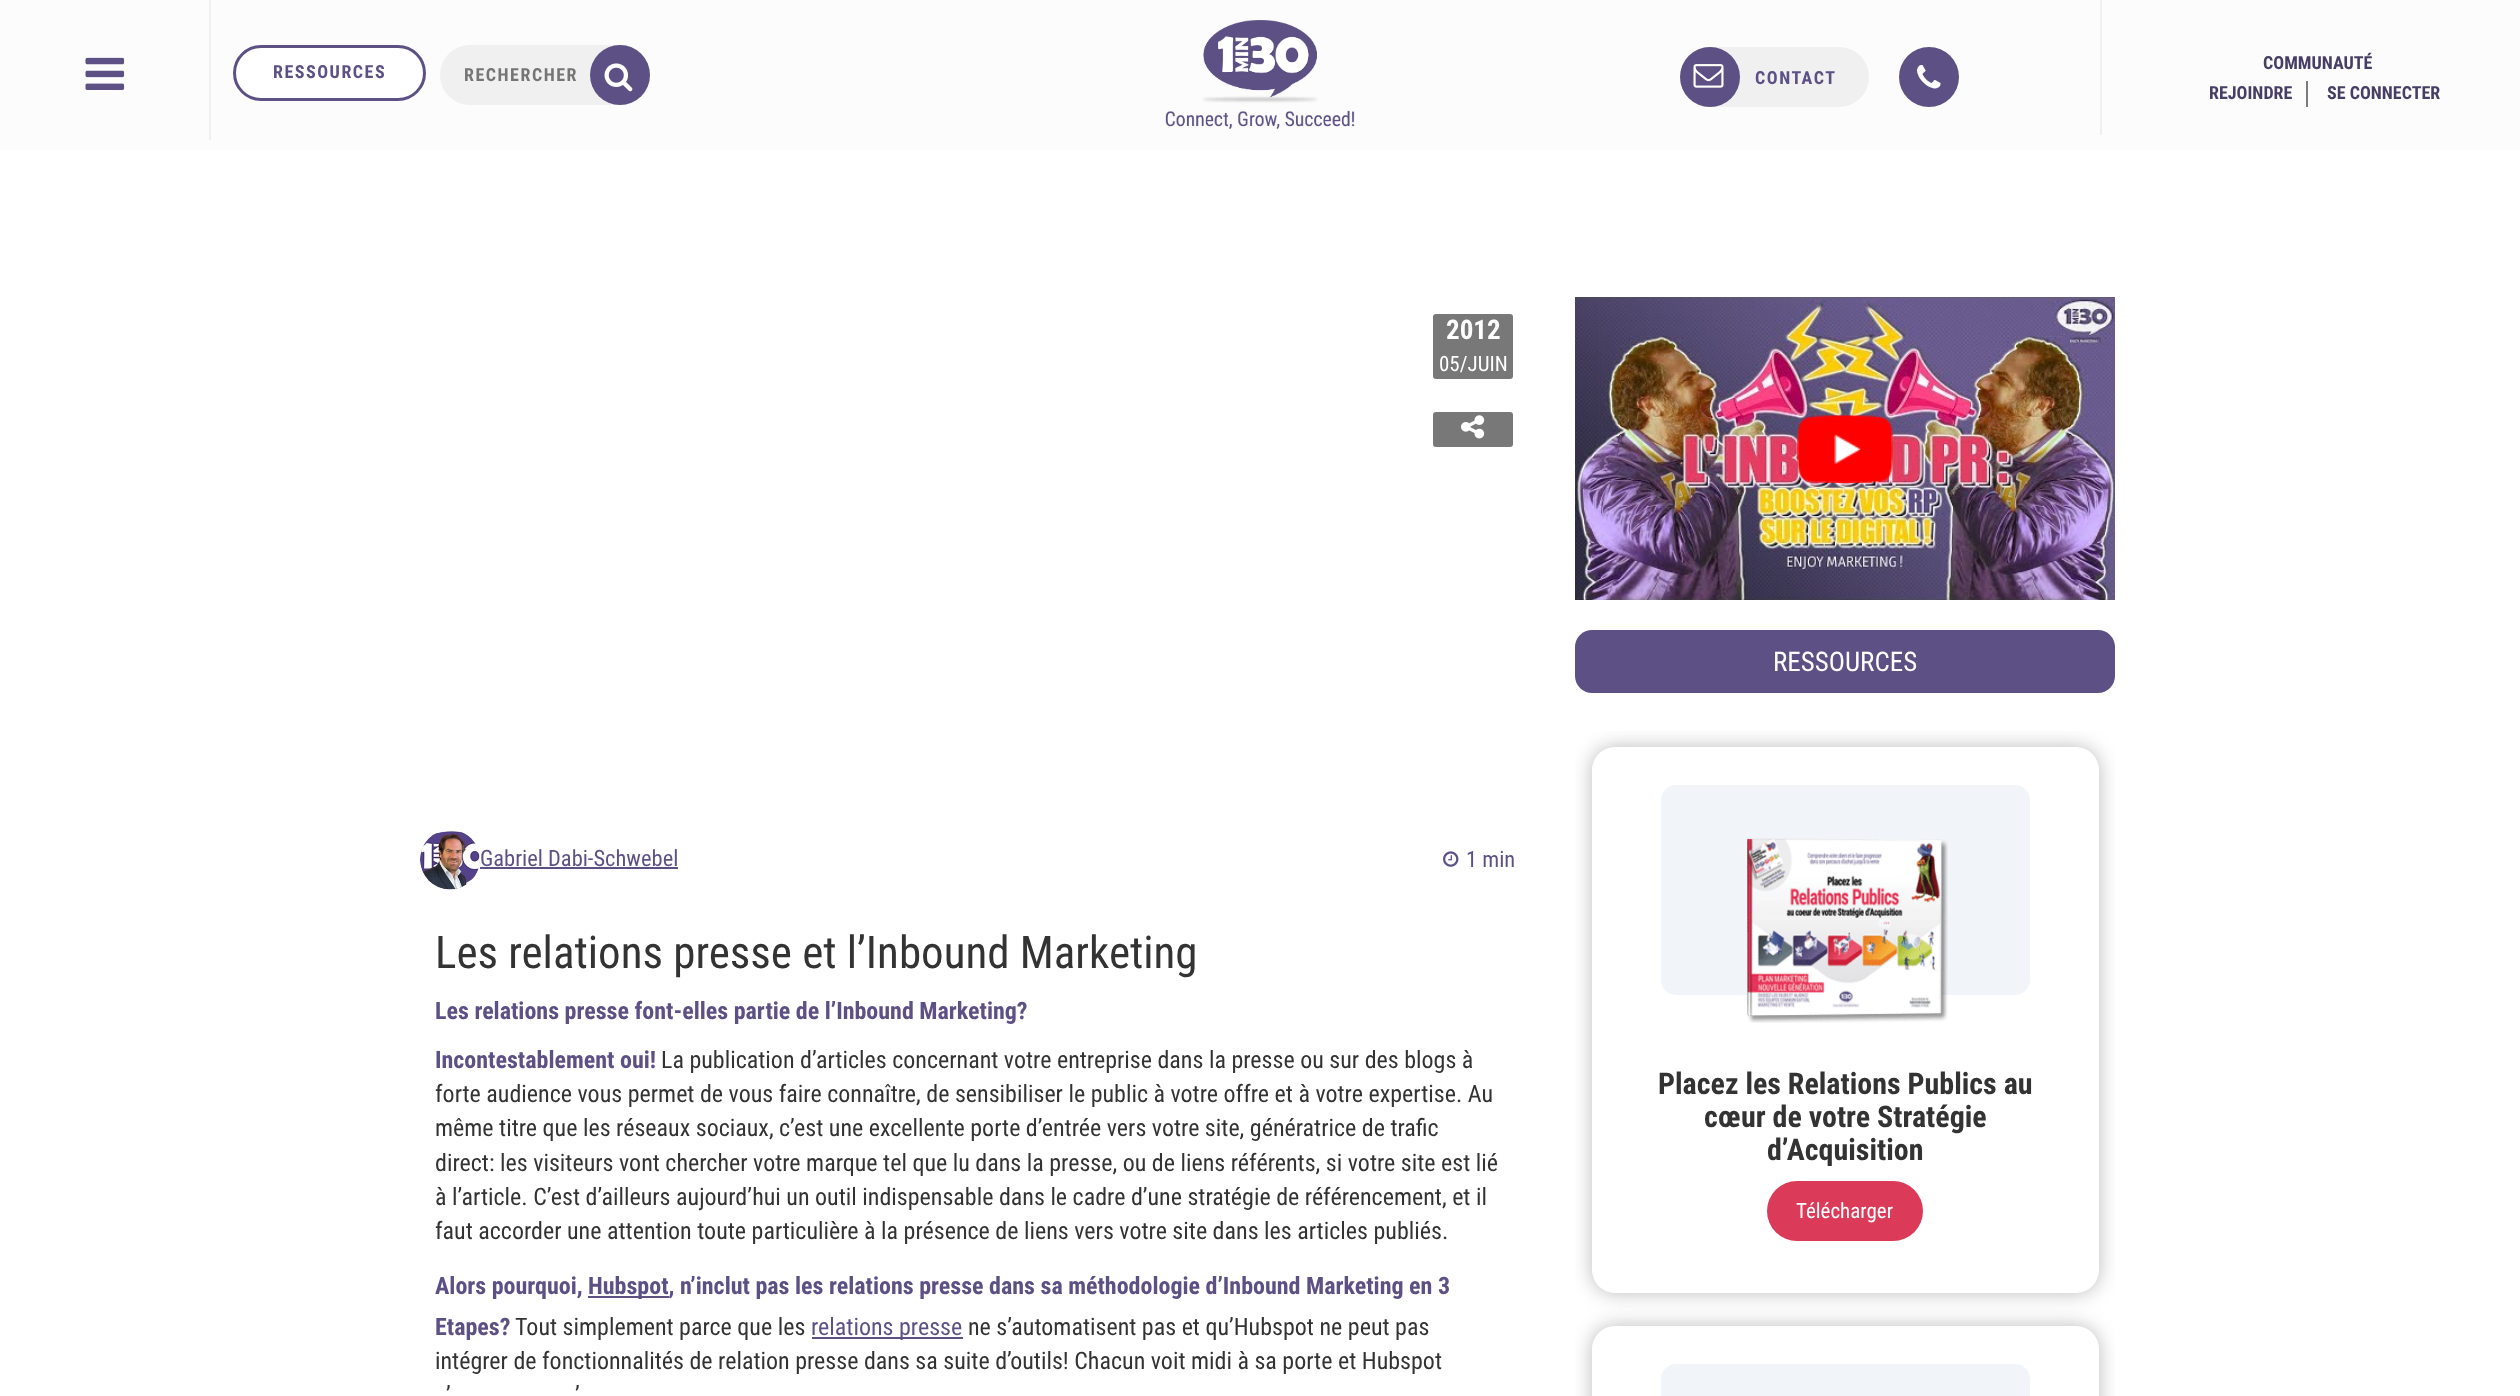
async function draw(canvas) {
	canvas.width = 2520;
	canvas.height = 1396;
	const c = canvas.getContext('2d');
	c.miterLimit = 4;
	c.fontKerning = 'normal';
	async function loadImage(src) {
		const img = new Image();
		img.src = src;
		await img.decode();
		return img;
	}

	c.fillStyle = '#fff';
	c.fillRect(0, 0, 2520, 1396);
	c.fillStyle = '#fcfcfc';
	c.fillRect(0, 0, 2520, 150);
	c.fillStyle = '#f0f0f0';
	c.fillRect(209, 0, 2, 140);
	c.drawImage(await loadImage('img1.png'), 85, 57, 40, 33);
	c.fillStyle = '#fff';
	c.beginPath();
	c.roundRect(234.5, 46.5, 190, 53, 26.5);
	c.fill();
	c.strokeStyle = '#5d5085';
	c.lineWidth = 3;
	c.stroke();
	c.letterSpacing = '1.5px';
	c.font = 'bold 18px Roboto Condensed';
	c.fillStyle = '#5d5085';
	c.fillText('RESSOURCES', 273, 78);
	c.fillStyle = '#f0f0f0';
	c.beginPath();
	c.roundRect(440, 45, 210, 60, 30);
	c.fill();
	c.fillStyle = '#757575';
	c.fillText('RECHERCHER', 464, 81);
	c.fillStyle = '#5d5085';
	c.beginPath();
	c.arc(620, 75, 30, 0, 2 * Math.PI);
	c.fill();
	c.drawImage(await loadImage('img2.png'), 604, 63, 29, 29);
	c.drawImage(await loadImage('img3.png'), 1165, 20, 190, 109);
	c.fillStyle = '#f0f0f0';
	c.beginPath();
	c.roundRect(1680, 47, 189, 60, 30);
	c.fill();
	c.fillStyle = '#5d5085';
	c.beginPath();
	c.arc(1710, 77, 30, 0, 2 * Math.PI);
	c.fill();
	c.drawImage(await loadImage('img4.png'), 1693, 64, 31, 24);
	c.fillText('CONTACT', 1755, 84);
	c.beginPath();
	c.arc(1929, 77, 30, 0, 2 * Math.PI);
	c.fill();
	c.drawImage(await loadImage('img5.png'), 1917, 65, 24, 24);
	c.fillStyle = '#f0f0f0';
	c.fillRect(2100, 0, 2, 135);
	c.letterSpacing = '0px';
	c.fillStyle = '#473e66';
	c.fillText('COMMUNAUTÉ', 2263, 69);
	c.fillText('REJOINDRE', 2209, 99);
	c.fillStyle = '#7c7c7c';
	c.fillRect(2306, 81, 2, 26);
	c.fillStyle = '#473e66';
	c.fillText('SE CONNECTER', 2327, 99);
	c.fillStyle = '#787878';
	c.beginPath();
	c.roundRect(1432, 313, 82, 67, 4);
	c.fill();
	c.strokeStyle = '#fff';
	c.lineWidth = 2;
	c.stroke();
	c.font = 'bold 27px Roboto Condensed';
	c.fillStyle = '#fff';
	c.fillText('2012', 1446, 339);
	c.font = '21px Roboto Condensed';
	c.fillText('05/JUIN', 1439, 371);
	c.fillStyle = '#787878';
	c.beginPath();
	c.roundRect(1432, 411, 82, 37, 4);
	c.fill();
	c.stroke();
	c.drawImage(await loadImage('img6.png'), 1461, 415, 24, 24);
	c.drawImage(await loadImage('img7.png'), 420, 831, 60, 59);
	c.font = '22.5px Roboto Condensed';
	c.fillStyle = '#5d5085';
	c.fillText('Gabriel Dabi-Schwebel', 480, 866);
	c.fillRect(480, 867, 198, 2);
	c.drawImage(await loadImage('img8.png'), 1443, 851, 16, 16);
	c.fillText('1 min', 1466, 867);
	c.font = '45px Roboto Condensed';
	c.fillStyle = '#333';
	c.fillText('Les relations presse et l’Inbound Marketing', 435, 968);
	c.font = 'bold 24px Roboto Condensed';
	c.fillStyle = '#5d5085';
	c.fillText('Les relations presse font-elles partie de l’Inbound Marketing?', 435, 1019);
	c.fillText('Incontestablement oui!', 435, 1068);
	c.font = '24px Roboto Condensed';
	c.fillStyle = '#333';
	for (const [text, x, y] of [
		['La publication d’articles concernant votre entreprise dans la presse ou sur des blogs à', 661, 1068],
		['forte audience vous permet de vous faire connaître, de sensibiliser le public à votre offre et à votre expertise. Au', 435, 1102],
		['même titre que les réseaux sociaux, c’est une excellente porte d’entrée vers votre site, génératrice de trafic', 435, 1136],
		['direct: les visiteurs vont chercher votre marque tel que lu dans la presse, ou de liens référents, si votre site est lié', 435, 1171],
		['à l’article. C’est d’ailleurs aujourd’hui un outil indispensable dans le cadre d’une stratégie de référencement, et il', 435, 1205],
		['faut accorder une attention toute particulière à la présence de liens vers votre site dans les articles publiés.', 435, 1239],
	]) {
		c.fillText(text, x, y);
	}
	c.font = 'bold 24px Roboto Condensed';
	c.fillStyle = '#5d5085';
	c.fillText('Alors pourquoi,', 435, 1294);
	c.fillRect(588, 1296, 81, 2);
	c.fillText('Hubspot, n’inclut pas les relations presse dans sa méthodologie d’Inbound Marketing en 3', 588, 1294);
	c.fillText('Etapes?', 435, 1335);
	c.font = '24px Roboto Condensed';
	c.fillStyle = '#333';
	c.fillText('Tout simplement parce que les', 515, 1335);
	c.fillStyle = '#5d5085';
	c.fillRect(812, 1337, 151, 2);
	c.fillText('relations presse', 811, 1335);
	c.fillStyle = '#333';
	for (const [text, x, y] of [
		['ne s’automatisent pas et qu’Hubspot ne peut pas', 968, 1335],
		['intégrer de fonctionnalités de relation presse dans sa suite d’outils! Chacun voit midi à sa porte et Hubspot', 435, 1369],
		['’', 446, 1403],
		['’', 575, 1403],
	]) {
		c.fillText(text, x, y);
	}
	c.drawImage(await loadImage('img9.png'), 1575, 297, 540, 303);
	c.drawImage(await loadImage('img10.png'), 1797, 415, 96, 68);
	c.fillStyle = '#5d5085';
	c.beginPath();
	c.roundRect(1575, 630, 540, 63, 17);
	c.fill();
	c.font = '27px Roboto Condensed';
	c.fillStyle = '#fff';
	c.fillText('RESSOURCES', 1773, 671);
	c.save();
	c.beginPath();
	c.rect(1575, 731, 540, 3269);
	c.clip();
	c.fillStyle = '#bbb';
	c.filter = 'blur(10px)';
	c.beginPath();
	c.roundRect(1592, 747, 507, 546, 23);
	c.fill();
	c.filter = 'none';
	c.restore();
	c.beginPath();
	c.roundRect(1592, 747, 507, 546, 23);
	c.fill();
	c.fillStyle = '#f1f4f8';
	c.beginPath();
	c.roundRect(1661, 785, 369, 210, 15);
	c.fill();
	c.drawImage(await loadImage('img11.png'), 1746, 838, 202, 185);
	c.font = 'bold 30px Roboto Condensed';
	c.fillStyle = '#333';
	for (const [text, x, y] of [
		['Placez les Relations Publics au', 1658, 1094],
		['cœur de votre Stratégie', 1704, 1127],
		['d’Acquisition', 1767, 1160],
	]) {
		c.fillText(text, x, y);
	}
	c.fillStyle = '#dc3a59';
	c.beginPath();
	c.roundRect(1767, 1181, 156, 60, 30);
	c.fill();
	c.font = '21px Roboto Condensed';
	c.fillStyle = '#fff';
	c.fillText('Télécharger', 1796, 1218);
	c.save();
	c.beginPath();
	c.rect(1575, 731, 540, 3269);
	c.clip();
	c.fillStyle = '#bbb';
	c.filter = 'blur(10px)';
	c.beginPath();
	c.roundRect(1592, 1326, 507, 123, 23);
	c.fill();
	c.filter = 'none';
	c.restore();
	c.beginPath();
	c.roundRect(1592, 1326, 507, 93, 23);
	c.fill();
	c.fillStyle = '#f1f4f8';
	c.beginPath();
	c.roundRect(1661, 1364, 369, 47, 15);
	c.fill();
}

draw(document.querySelector('canvas'));
